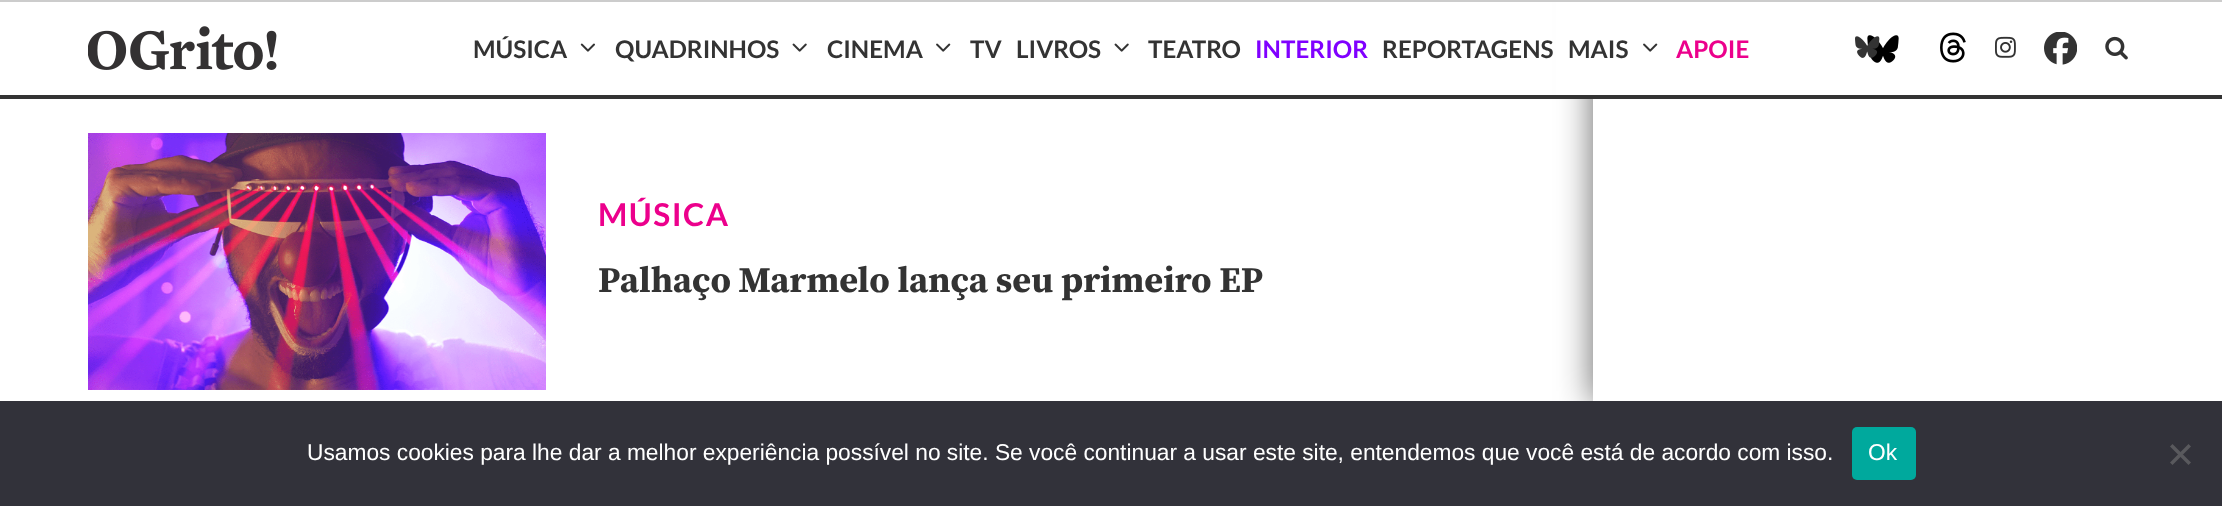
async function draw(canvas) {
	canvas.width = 2222;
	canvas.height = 506;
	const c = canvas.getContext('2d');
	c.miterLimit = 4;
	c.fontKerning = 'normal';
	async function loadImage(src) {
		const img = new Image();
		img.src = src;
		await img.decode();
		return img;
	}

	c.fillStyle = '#fff';
	c.fillRect(0, 0, 2222, 506);
	c.fillStyle = '#00000099';
	c.filter = 'blur(17.5px)';
	c.beginPath();
	c.rect(1593, -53, 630, 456);
	c.fill();
	c.filter = 'none';
	for (const [x, y, w, h, color] of [
		[1556, 2, 666, 93, '#fff'],
		[0, 0, 2222, 2, '#ccc'],
		[0, 95, 2222, 4, '#333'],
	]) {
		c.fillStyle = color;
		c.fillRect(x, y, w, h);
	}
	c.drawImage(await loadImage('img1.png'), 88, 26, 189, 44);
	c.font = 'bold 24.25px Lato';
	c.fillText('MÚSICA', 473, 58);
	c.drawImage(await loadImage('img2.png'), 580, 43, 15, 9);
	c.fillText('QUADRINHOS', 615, 58);
	c.drawImage(await loadImage('img3.png'), 792, 43, 15, 9);
	c.fillText('CINEMA', 827, 58);
	c.drawImage(await loadImage('img4.png'), 936, 43, 15, 9);
	c.fillText('TV', 970, 58);
	c.fillText('LIVROS', 1016, 58);
	c.drawImage(await loadImage('img3.png'), 1114, 43, 15, 9);
	c.fillText('TEATRO', 1148, 58);
	c.fillStyle = '#8000ff';
	c.fillText('INTERIOR', 1255, 58);
	c.fillStyle = '#333';
	c.fillText('REPORTAGENS', 1382, 58);
	c.fillText('MAIS', 1568, 58);
	c.drawImage(await loadImage('img4.png'), 1643, 43, 15, 9);
	c.fillStyle = '#ec008c';
	c.fillText('APOIE', 1676, 58);
	c.drawImage(await loadImage('img5.png'), 1867, 35, 32, 28);
	c.drawImage(await loadImage('img6.png'), 1855, 36, 25, 22);
	c.drawImage(await loadImage('img7.png'), 1940, 32, 26, 31);
	c.drawImage(await loadImage('img8.png'), 1995, 36, 21, 22);
	c.drawImage(await loadImage('img9.png'), 2044, 32, 33, 33);
	c.drawImage(await loadImage('img10.png'), 2105, 36, 23, 24);
	c.drawImage(await loadImage('img11.png'), 88, 133, 458, 257);
	c.letterSpacing = '1.5px';
	c.font = 'bold 31.5px Lato';
	c.fillText('MÚSICA', 598, 226);
	c.letterSpacing = '0px';
	c.font = 'bold 36.25px Source Serif Pro';
	c.fillStyle = '#333';
	c.fillText('Palhaço Marmelo lança seu primeiro EP', 598, 292);
	c.fillStyle = '#fff';
	c.fillRect(1593, 99, 629, 302);
	c.fillStyle = '#32323a';
	c.fillRect(0, 401, 2222, 105);
	c.font = '22.75px Liberation Sans';
	c.fillStyle = '#fff';
	c.fillText('Usamos cookies para lhe dar a melhor experiência possível no site. Se você continuar a usar este site, entendemos que você está de acordo com isso.', 307, 460);
	c.fillStyle = '#00a99d';
	c.beginPath();
	c.roundRect(1852, 427, 64, 53, 5);
	c.fill();
	c.fillStyle = '#fff';
	c.fillText('Ok', 1868, 460);
	c.fillStyle = '#59595d';
	c.beginPath();
	c.moveTo(2188.5, 444);
	c.lineTo(2191, 446.5);
	c.lineTo(2172.5, 465);
	c.lineTo(2170, 462.5);
	c.closePath();
	c.fill();
	c.beginPath();
	c.moveTo(2170, 446.5);
	c.lineTo(2172.5, 444);
	c.lineTo(2191, 462.5);
	c.lineTo(2188.5, 465);
	c.closePath();
	c.fill();
}

draw(document.querySelector('canvas'));
